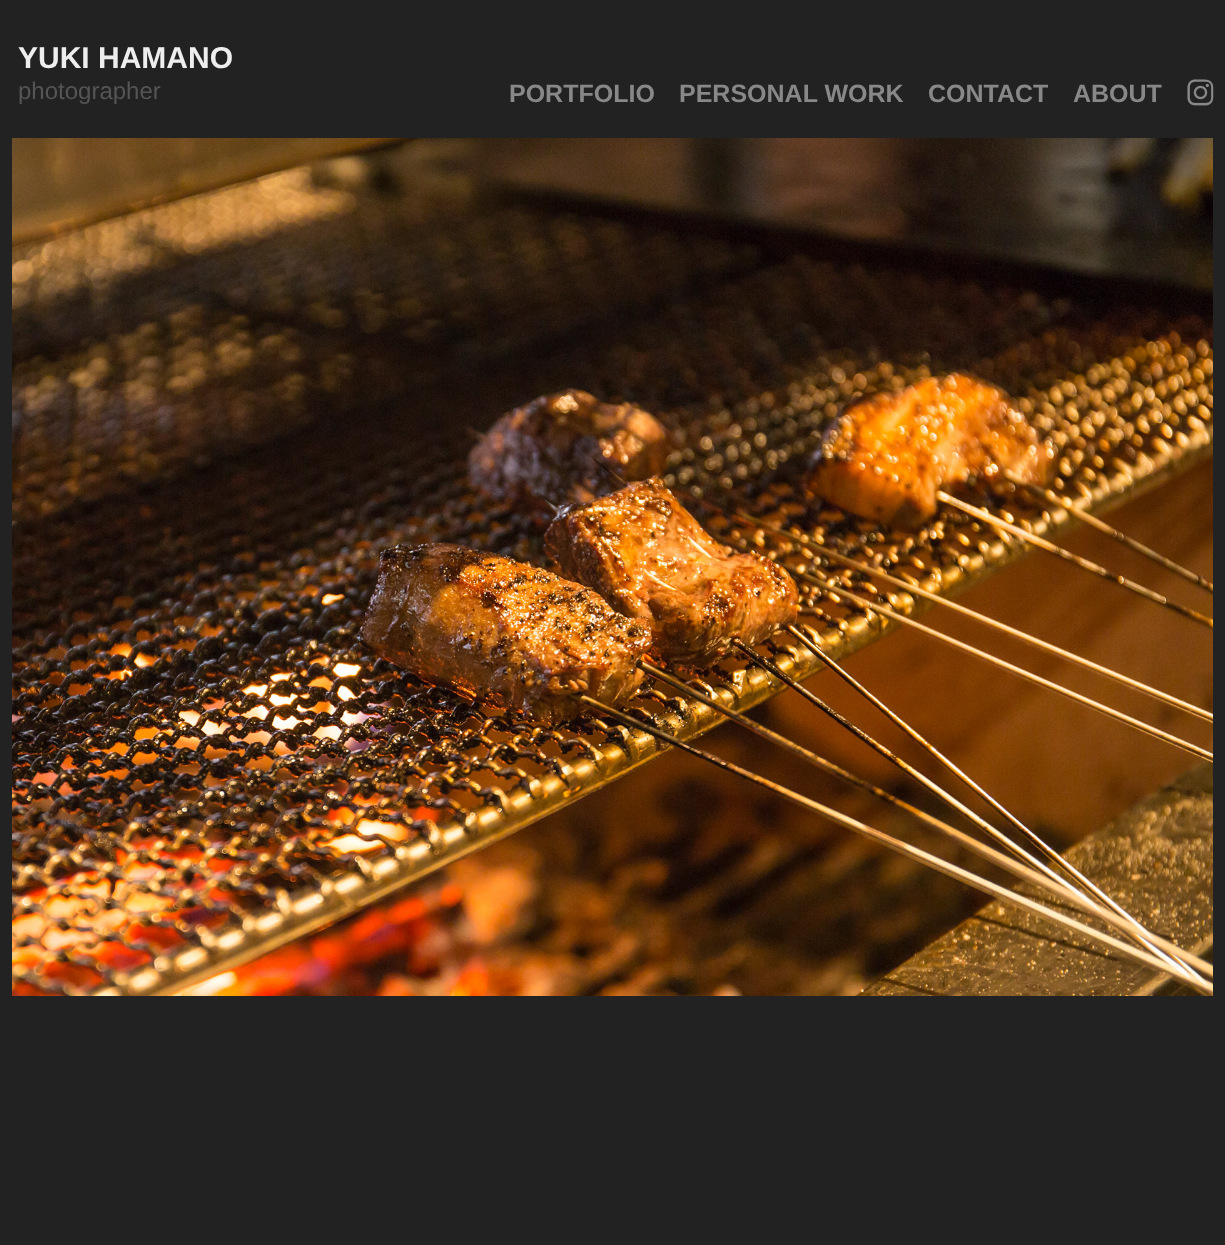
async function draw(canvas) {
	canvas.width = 1225;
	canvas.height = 1245;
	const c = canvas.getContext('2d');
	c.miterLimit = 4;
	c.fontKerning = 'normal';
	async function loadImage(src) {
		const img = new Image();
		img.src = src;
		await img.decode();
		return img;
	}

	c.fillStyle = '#222';
	c.fillRect(0, 0, 1225, 1245);
	c.font = 'bold 30px Liberation Sans';
	c.fillStyle = '#eee';
	c.fillText('YUKI HAMANO', 18, 68);
	c.font = '24px Liberation Sans';
	c.fillStyle = '#555';
	c.fillText('photographer', 18, 99);
	c.font = 'bold 25px Liberation Sans';
	c.fillStyle = '#888';
	for (const [text, x, y] of [
		['PORTFOLIO', 509, 102],
		['PERSONAL WORK', 679, 102],
		['CONTACT', 928, 102],
		['ABOUT', 1073, 102],
	]) {
		c.fillText(text, x, y);
	}
	c.drawImage(await loadImage('img1.png'), 1187, 79, 27, 27);
	c.drawImage(await loadImage('img2.png'), 12, 138, 1201, 858);
}

draw(document.querySelector('canvas'));
